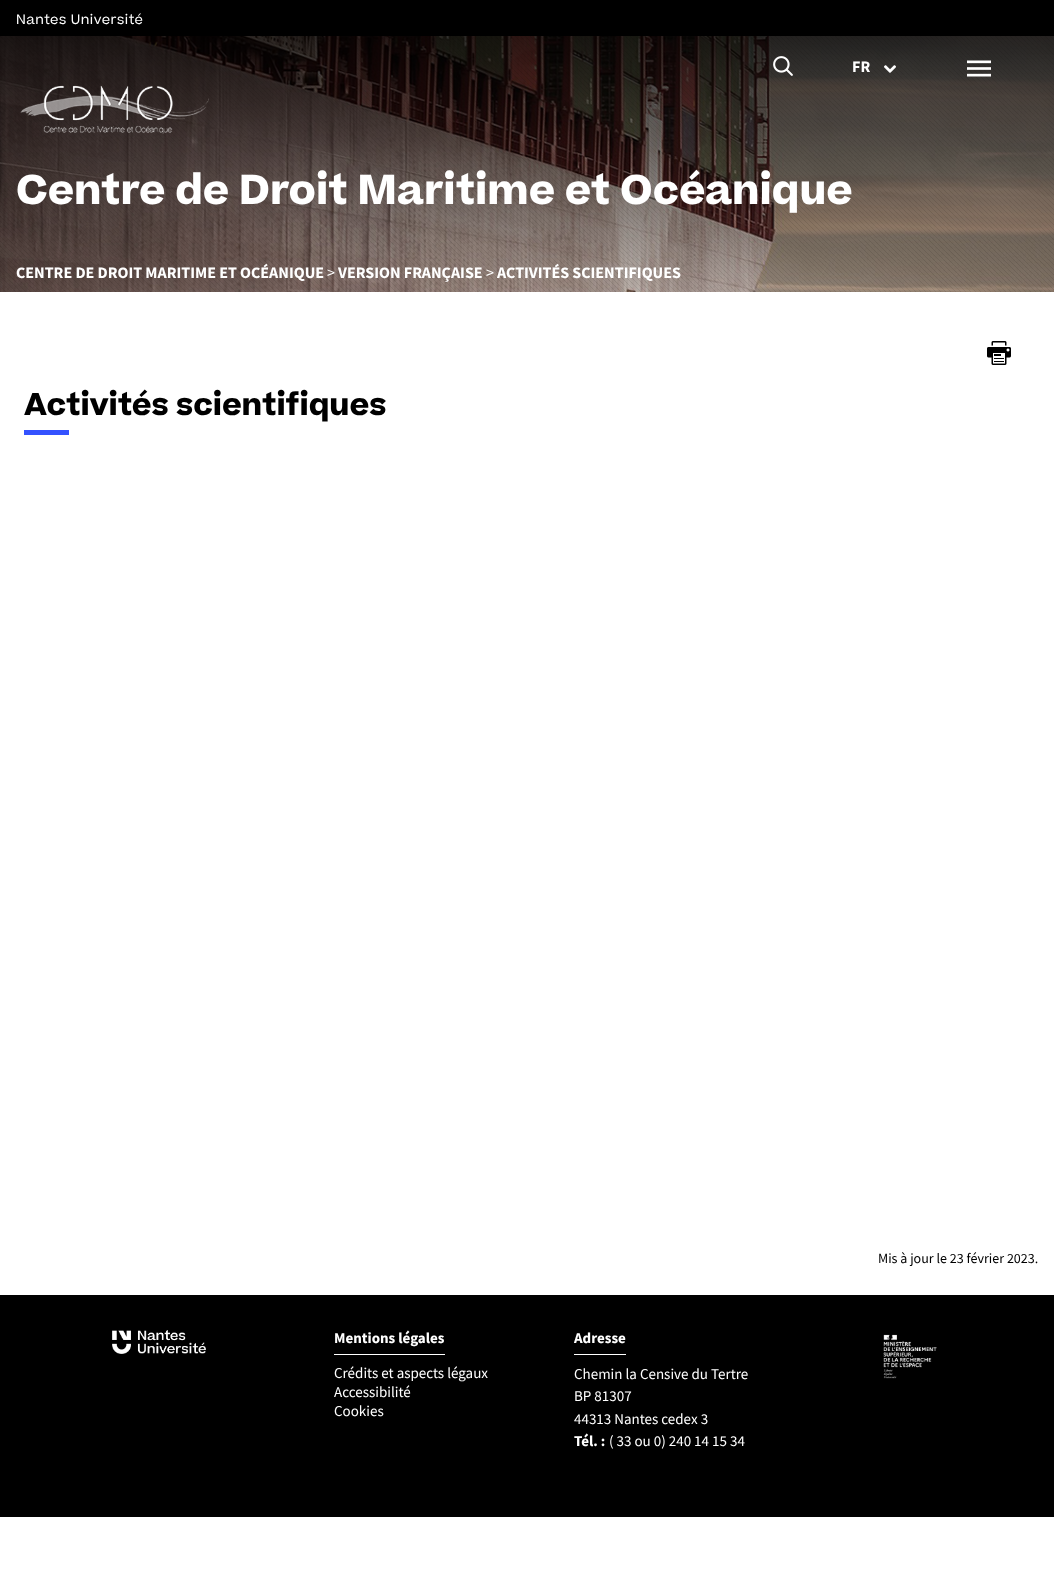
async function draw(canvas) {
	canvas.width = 1054;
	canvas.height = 1578;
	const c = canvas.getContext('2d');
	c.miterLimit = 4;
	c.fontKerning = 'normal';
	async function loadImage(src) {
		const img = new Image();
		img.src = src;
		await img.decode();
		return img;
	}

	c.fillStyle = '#fff';
	c.fillRect(0, 0, 1054, 1578);
	c.fillStyle = '#000';
	c.fillRect(0, 0, 1054, 36);
	c.letterSpacing = '0.5px';
	c.font = '13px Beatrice';
	c.fillStyle = '#fff';
	c.fillText('Nantes Université', 16, 24);
	c.drawImage(await loadImage('img1.png'), 0, 36, 1054, 256);
	c.drawImage(await loadImage('img2.png'), 0, 36, 1054, 256);
	c.drawImage(await loadImage('img3.png'), 773, 56, 20, 20);
	c.letterSpacing = '0px';
	c.font = 'bold 16px Source Sans Pro';
	c.fillText('FR', 852, 72);
	c.drawImage(await loadImage('img4.png'), 884, 65, 12, 8);
	c.drawImage(await loadImage('img5.png'), 967, 60, 24, 17);
	c.drawImage(await loadImage('img6.png'), 20, 85, 189, 49);
	c.font = 'bold 40px Beatrice';
	c.fillText('Centre de Droit Maritime et Océanique', 16, 204);
	c.font = 'bold 16px Source Sans Pro';
	c.fillText('CENTRE DE DROIT MARITIME ET OCÉANIQUE', 16, 278);
	c.font = '16px Source Sans Pro';
	c.fillText('>', 327, 278);
	c.font = 'bold 16px Source Sans Pro';
	c.fillText('VERSION FRANÇAISE', 338, 278);
	c.font = '16px Source Sans Pro';
	c.fillText('>', 486, 278);
	c.font = 'bold 16px Source Sans Pro';
	c.fillText('ACTIVITÉS SCIENTIFIQUES', 497, 278);
	c.drawImage(await loadImage('img7.png'), 987, 341, 24, 24);
	c.font = 'bold 30px Beatrice';
	c.fillStyle = '#000';
	c.fillText('Activités scientifiques', 24, 415);
	c.fillStyle = '#3452ff';
	c.fillRect(24, 430, 45, 5);
	c.font = '14px Source Sans Pro';
	c.fillStyle = '#000';
	c.fillText('Mis à jour le 23 février 2023.', 878, 1263);
	c.fillRect(0, 1295, 1054, 222);
	c.drawImage(await loadImage('img8.png'), 112, 1330, 94, 24);
	c.fillStyle = '#fff';
	c.fillRect(334, 1354, 111, 1);
	c.font = 'bold 15px Source Sans Pro';
	c.fillText('Mentions légales', 334, 1343);
	c.font = '15px Source Sans Pro';
	for (const [text, x, y] of [
		['Crédits et aspects légaux', 334, 1378],
		['Accessibilité', 334, 1397],
		['Cookies', 334, 1416],
	]) {
		c.fillText(text, x, y);
	}
	c.fillRect(574, 1354, 52, 1);
	c.font = 'bold 15px Source Sans Pro';
	c.fillText('Adresse', 574, 1343);
	c.font = '15px Source Sans Pro';
	for (const [text, x, y] of [
		['Chemin la Censive du Tertre', 574, 1379],
		['BP 81307', 574, 1401],
		['44313 Nantes cedex 3', 574, 1424],
	]) {
		c.fillText(text, x, y);
	}
	c.font = 'bold 15px Source Sans Pro';
	c.fillText('Tél. :', 574, 1446);
	c.font = '15px Source Sans Pro';
	c.fillText('( 33 ou 0) 240 14 15 34', 609, 1446);
	c.drawImage(await loadImage('img9.png'), 883, 1334, 54, 45);
}

draw(document.querySelector('canvas'));
